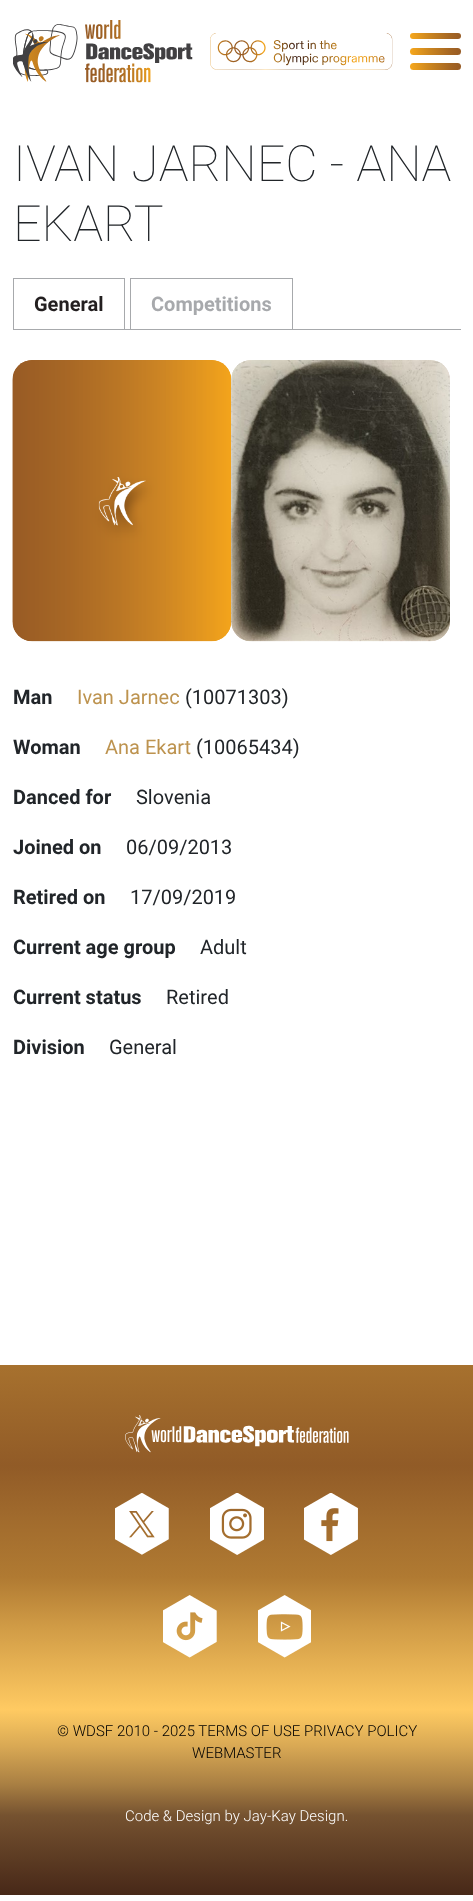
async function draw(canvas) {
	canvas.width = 473;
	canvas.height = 1901;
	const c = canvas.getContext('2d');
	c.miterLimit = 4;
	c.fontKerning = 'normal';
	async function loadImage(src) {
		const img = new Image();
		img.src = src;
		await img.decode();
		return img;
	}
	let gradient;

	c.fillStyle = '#fff';
	c.fillRect(0, 0, 473, 1901);
	c.drawImage(await loadImage('img1.png'), 13, 20, 180, 63);
	c.drawImage(await loadImage('img2.png'), 210, 33, 183, 37);
	gradient = c.createLinearGradient(410, 36, 461, 36);
	gradient.addColorStop(0, '#f6a71c');
	gradient.addColorStop(0.38, '#cb851f');
	gradient.addColorStop(0.79, '#a56623');
	gradient.addColorStop(1, '#975b25');
	c.fillStyle = gradient;
	c.beginPath();
	c.roundRect(410, 33, 51, 6, 3);
	c.fill();
	gradient = c.createLinearGradient(410, 197, 461, 197);
	gradient.addColorStop(0, '#f6a71c');
	gradient.addColorStop(0.38, '#cb851f');
	gradient.addColorStop(0.79, '#a56623');
	gradient.addColorStop(1, '#975b25');
	c.fillStyle = gradient;
	c.beginPath();
	c.roundRect(410, 48, 51, 7, 3.5);
	c.fill();
	gradient = c.createLinearGradient(410, 335, 461, 335);
	gradient.addColorStop(0, '#f6a71c');
	gradient.addColorStop(0.38, '#cb851f');
	gradient.addColorStop(0.79, '#a56623');
	gradient.addColorStop(1, '#975b25');
	c.fillStyle = gradient;
	c.beginPath();
	c.roundRect(410, 63, 51, 7, 3.5);
	c.fill();
	c.font = '100 50px Roboto';
	c.fillStyle = '#212529';
	c.fillText('IVAN JARNEC - ANA', 13, 181);
	c.fillText('EKART', 13, 241);
	c.fillStyle = '#a7a9ac';
	c.fillRect(125, 329, 336, 1);
	c.strokeStyle = '#a7a9ac';
	c.strokeRect(13.5, 278.5, 111, 51);
	c.font = 'bold 20px Roboto';
	c.fillStyle = '#231f20';
	c.fillText('General', 34, 311);
	c.strokeRect(130.5, 278.5, 162, 51);
	c.fillStyle = '#a7a9ac';
	c.fillText('Competitions', 151, 311);
	c.drawImage(await loadImage('img3.png'), 12, 360, 220, 282);
	c.drawImage(await loadImage('img4.png'), 12, 360, 220, 282);
	c.drawImage(await loadImage('img5.png'), 231, 360, 219, 282);
	c.drawImage(await loadImage('img6.png'), 231, 360, 219, 282);
	c.fillStyle = '#212529';
	c.fillText('Man', 13, 704);
	c.font = '20px Roboto';
	c.fillStyle = '#bd934f';
	c.fillText('Ivan Jarnec', 77, 704);
	c.fillStyle = '#212529';
	c.fillText('(10071303)', 185, 704);
	c.font = 'bold 20px Roboto';
	c.fillText('Woman', 13, 754);
	c.font = '20px Roboto';
	c.fillStyle = '#bd934f';
	c.fillText('Ana Ekart', 105, 754);
	c.fillStyle = '#212529';
	c.fillText('(10065434)', 196, 754);
	c.font = 'bold 20px Roboto';
	c.fillText('Danced for', 13, 804);
	c.font = '20px Roboto';
	c.fillText('Slovenia', 136, 804);
	c.font = 'bold 20px Roboto';
	c.fillText('Joined on', 13, 854);
	c.font = '20px Roboto';
	c.fillText('06/09/2013', 126, 854);
	c.font = 'bold 20px Roboto';
	c.fillText('Retired on', 13, 904);
	c.font = '20px Roboto';
	c.fillText('17/09/2019', 130, 904);
	c.font = 'bold 20px Roboto';
	c.fillText('Current age group', 13, 954);
	c.font = '20px Roboto';
	c.fillText('Adult', 200, 954);
	c.font = 'bold 20px Roboto';
	c.fillText('Current status', 13, 1004);
	c.font = '20px Roboto';
	c.fillText('Retired', 166, 1004);
	c.font = 'bold 20px Roboto';
	c.fillText('Division', 13, 1054);
	c.font = '20px Roboto';
	c.fillText('General', 109, 1054);
	gradient = c.createLinearGradient(237, 1365, 237, 1895);
	gradient.addColorStop(0, '#a7712e');
	gradient.addColorStop(0.19, '#915b27');
	gradient.addColorStop(0.29, '#a16b2d');
	gradient.addColorStop(0.4, '#b07a32');
	gradient.addColorStop(0.49, '#cf9a45');
	gradient.addColorStop(0.65, '#ffca62');
	gradient.addColorStop(0.67, '#f4c15e');
	gradient.addColorStop(0.72, '#d8a854');
	gradient.addColorStop(0.79, '#aa8043');
	gradient.addColorStop(0.85, '#755230');
	gradient.addColorStop(0.86, '#724f2e');
	gradient.addColorStop(1, '#472818');
	c.fillStyle = gradient;
	c.fillRect(0, 1365, 473, 530);
	c.drawImage(await loadImage('img7.png'), 125, 1415, 224, 38);
	c.drawImage(await loadImage('img8.png'), 115, 1493, 54, 62);
	c.drawImage(await loadImage('img9.png'), 210, 1493, 54, 62);
	c.drawImage(await loadImage('img10.png'), 304, 1493, 54, 62);
	c.drawImage(await loadImage('img11.png'), 163, 1595, 54, 63);
	c.drawImage(await loadImage('img12.png'), 258, 1595, 53, 63);
	c.font = '300 15px Roboto';
	c.fillStyle = '#000';
	c.fillText('© WDSF 2010 - 2025 TERMS OF USE PRIVACY POLICY', 57, 1736);
	c.fillText('WEBMASTER', 192, 1758);
	c.fillStyle = '#fff';
	c.fillText('Code & Design by Jay-Kay Design.', 125, 1821);
}

draw(document.querySelector('canvas'));
